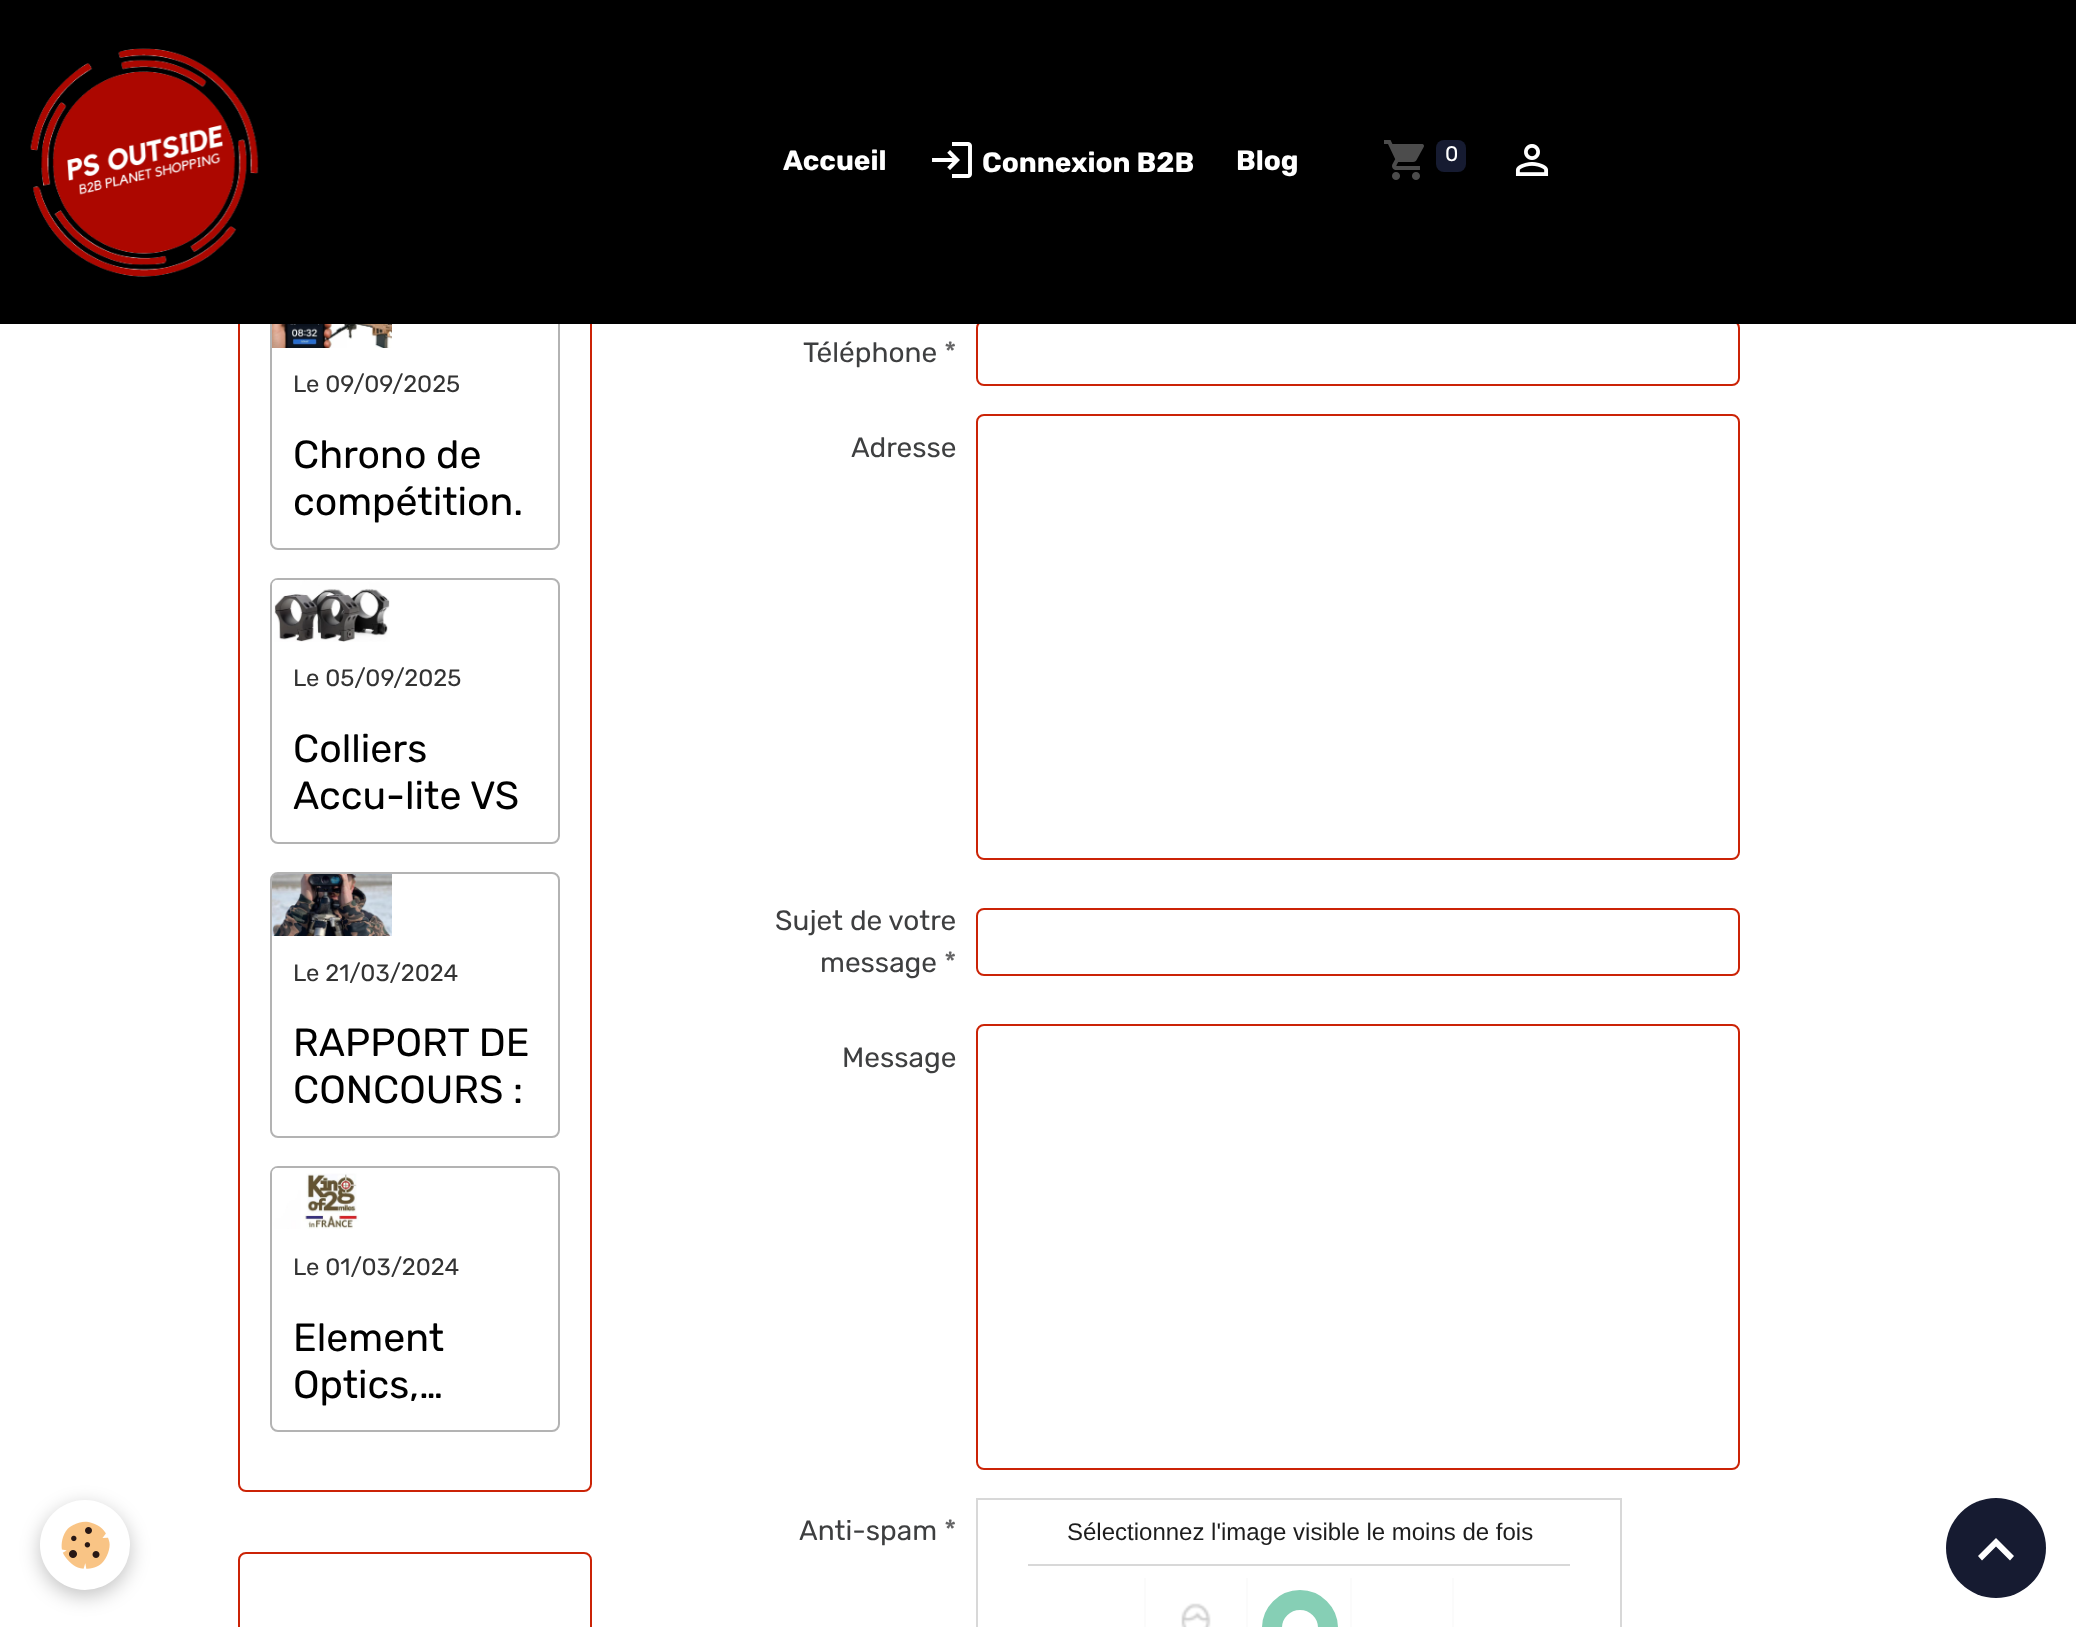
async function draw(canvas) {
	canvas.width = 2076;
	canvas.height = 1627;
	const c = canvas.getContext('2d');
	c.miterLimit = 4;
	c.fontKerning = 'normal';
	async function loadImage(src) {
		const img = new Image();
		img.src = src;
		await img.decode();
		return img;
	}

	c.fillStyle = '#fff';
	c.fillRect(0, 0, 2076, 1627);
	c.beginPath();
	c.roundRect(239, 111, 352, 1380, 7);
	c.strokeStyle = '#cb2306';
	c.lineWidth = 2;
	c.stroke();
	c.beginPath();
	c.roundRect(271, 283, 288, 266, 7);
	c.strokeStyle = '#b3b3b3';
	c.stroke();
	c.beginPath();
	c.roundRect(977, 321, 762, 64, 7);
	c.strokeStyle = '#cb2306';
	c.stroke();
	c.fillStyle = '#000';
	c.fillRect(0, 0, 2076, 324);
	c.drawImage(await loadImage('img1.png'), 30, 48, 229, 229);
	c.font = 'bold 28px Rubik';
	c.fillStyle = '#fff';
	c.fillText('Accueil', 783, 170);
	c.drawImage(await loadImage('img2.png'), 932, 142, 40, 36);
	c.fillText('Connexion B2B', 982, 172);
	c.fillText('Blog', 1236, 170);
	c.drawImage(await loadImage('img3.png'), 1384, 140, 40, 40);
	c.fillStyle = '#161b31';
	c.beginPath();
	c.roundRect(1436, 140, 30, 32, 8);
	c.fill();
	c.font = '21px Rubik';
	c.fillStyle = '#fff';
	c.fillText('0', 1445, 161);
	c.drawImage(await loadImage('img4.png'), 1515, 144, 34, 32);
	c.fillStyle = '#0000003d';
	c.filter = 'blur(10px)';
	c.beginPath();
	c.roundRect(40, 1506, 90, 90, 45);
	c.fill();
	c.filter = 'none';
	c.fillStyle = '#fff';
	c.beginPath();
	c.arc(85, 1545, 45, 0, 2 * Math.PI);
	c.fill();
	c.drawImage(await loadImage('img5.png'), 61, 1521, 49, 48);
	c.drawImage(await loadImage('img6.png'), 272, 324, 120, 24);
	c.font = '23.75px Rubik';
	c.fillStyle = '#333';
	c.fillText('Le 09/09/2025', 293, 392);
	c.font = '39.25px Rubik';
	c.fillStyle = '#000';
	c.fillText('Chrono de', 293, 468);
	c.fillText('compétition.', 293, 515);
	c.beginPath();
	c.roundRect(271, 579, 288, 264, 7);
	c.strokeStyle = '#b3b3b3';
	c.stroke();
	c.drawImage(await loadImage('img7.png'), 272, 580, 118, 62);
	c.font = '23.75px Rubik';
	c.fillStyle = '#333';
	c.fillText('Le 05/09/2025', 293, 686);
	c.font = '39.25px Rubik';
	c.fillStyle = '#000';
	c.fillText('Colliers', 293, 762);
	c.fillText('Accu-lite VS', 293, 809);
	c.beginPath();
	c.roundRect(271, 873, 288, 264, 7);
	c.stroke();
	c.drawImage(await loadImage('img8.png'), 272, 874, 120, 62);
	c.font = '23.75px Rubik';
	c.fillStyle = '#333';
	c.fillText('Le 21/03/2024', 293, 981);
	c.font = '39.25px Rubik';
	c.fillStyle = '#000';
	c.fillText('RAPPORT DE', 293, 1056);
	c.fillText('CONCOURS :', 293, 1103);
	c.beginPath();
	c.roundRect(271, 1167, 288, 264, 7);
	c.stroke();
	c.drawImage(await loadImage('img9.png'), 272, 1168, 87, 61);
	c.font = '23.75px Rubik';
	c.fillStyle = '#333';
	c.fillText('Le 01/03/2024', 293, 1275);
	c.font = '39.25px Rubik';
	c.fillStyle = '#000';
	c.fillText('Element', 293, 1351);
	c.fillText('Optics,…', 293, 1398);
	c.beginPath();
	c.roundRect(239, 1553, 352, 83, 7);
	c.strokeStyle = '#cb2306';
	c.stroke();
	c.font = '28px Rubik';
	c.fillStyle = '#3e3f40';
	c.fillText('Téléphone', 803, 362);
	c.fillStyle = '#656566';
	c.fillText('*', 944, 362);
	c.fillStyle = '#3e3f40';
	c.fillText('Adresse', 851, 457);
	c.beginPath();
	c.roundRect(977, 415, 762, 444, 7);
	c.stroke();
	c.fillText('Sujet de votre', 775, 930);
	c.fillStyle = '#656566';
	c.fillText('*', 944, 972);
	c.fillStyle = '#3e3f40';
	c.fillText('message', 820, 972);
	c.beginPath();
	c.roundRect(977, 909, 762, 66, 7);
	c.stroke();
	c.fillText('Message', 842, 1067);
	c.beginPath();
	c.roundRect(977, 1025, 762, 444, 7);
	c.stroke();
	c.fillText('Anti-spam', 799, 1540);
	c.fillStyle = '#656566';
	c.fillText('*', 944, 1540);
	c.strokeStyle = '#d8d8d8';
	c.strokeRect(977, 1499, 644, 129);
	c.fillStyle = '#d8d8d8';
	c.fillRect(1028, 1564, 542, 2);
	c.font = '24px Liberation Sans';
	c.fillStyle = '#1d1d1d';
	c.fillText('Sélectionnez l\'image visible le moins de fois', 1067, 1540);
	c.fillStyle = '#fbfbfb';
	c.fillRect(1144, 1578, 2, 49);
	c.drawImage(await loadImage('img10.png'), 1181, 1603, 30, 24);
	c.fillRect(1246, 1578, 2, 49);
	c.beginPath();
	c.arc(1300, 1628, 28, 0, 2 * Math.PI);
	c.strokeStyle = '#86cfb5';
	c.lineWidth = 20;
	c.stroke();
	c.fillRect(1350, 1578, 2, 49);
	c.fillRect(1452, 1578, 2, 49);
	c.fillStyle = '#161b31';
	c.beginPath();
	c.arc(1996, 1548, 50, 0, 2 * Math.PI);
	c.fill();
	c.fillStyle = '#fff';
	c.beginPath();
	c.moveTo(1996, 1538);
	c.lineTo(2014, 1556);
	c.lineTo(2010, 1560.5);
	c.lineTo(1996, 1546.5);
	c.lineTo(1982, 1560.5);
	c.lineTo(1978, 1556);
	c.closePath();
	c.fill();
}

draw(document.querySelector('canvas'));
